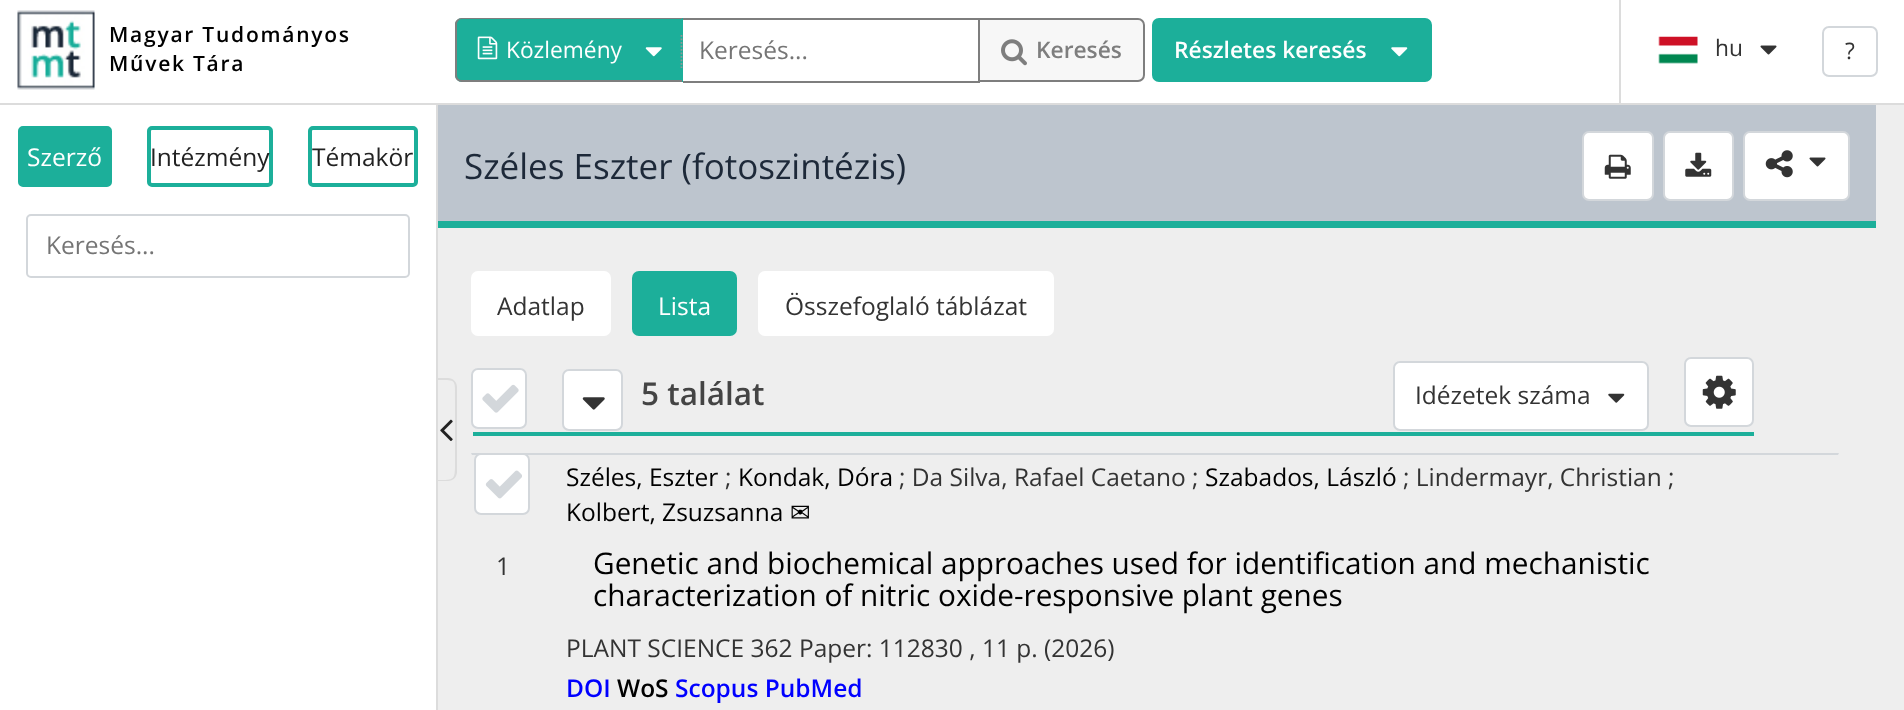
async function draw(canvas) {
	canvas.width = 1904;
	canvas.height = 710;
	const c = canvas.getContext('2d');
	c.miterLimit = 4;
	c.fontKerning = 'normal';
	async function loadImage(src) {
		const img = new Image();
		img.src = src;
		await img.decode();
		return img;
	}

	c.fillStyle = '#eee';
	c.fillRect(0, 0, 1904, 710);
	for (const [x, y, w, h, color] of [
		[436, 100, 2, 610, '#dcdcdc'],
		[0, 0, 1904, 103, '#fff'],
		[0, 103, 1904, 2, '#dcdcdc'],
	]) {
		c.fillStyle = color;
		c.fillRect(x, y, w, h);
	}
	c.drawImage(await loadImage('img1.png'), 17, 10, 78, 80);
	c.letterSpacing = '1.75px';
	c.font = '600 21px Open Sans';
	c.fillStyle = '#000';
	c.fillText('Magyar Tudományos', 109, 42);
	c.fillText('Művek Tára', 109, 71);
	c.fillStyle = '#1caf9a';
	c.beginPath();
	c.roundRect(455, 18, 228, 64, [7, 0, 0, 7]);
	c.fill();
	c.fillStyle = '#7e7e7e';
	c.beginPath();
	c.moveTo(462, 18);
	c.lineTo(682, 18);
	c.lineTo(682, 82);
	c.lineTo(462, 82);
	c.bezierCurveTo(458, 82, 455, 79, 455, 75);
	c.lineTo(455, 24);
	c.bezierCurveTo(455, 21, 458, 18, 462, 18);
	c.closePath();
	c.moveTo(462, 19);
	c.lineTo(682, 19);
	c.lineTo(682, 80);
	c.lineTo(462, 80);
	c.bezierCurveTo(459, 80, 457, 78, 457, 75);
	c.lineTo(457, 24);
	c.bezierCurveTo(457, 22, 459, 19, 462, 19);
	c.closePath();
	c.fill('evenodd');
	c.drawImage(await loadImage('img2.png'), 477, 36, 21, 24);
	c.letterSpacing = '0px';
	c.font = '22.75px Open Sans';
	c.fillStyle = '#fff';
	c.fillText('Közlemény', 506, 58);
	c.beginPath();
	c.moveTo(681.5, 35);
	c.lineTo(681.5, 68);
	c.strokeStyle = '#969696';
	c.lineWidth = 1.8;
	c.setLineDash([1.75, 1.75]);
	c.stroke();
	c.drawImage(await loadImage('img3.png'), 645, 47, 17, 10);
	c.fillStyle = '#7e7e7e';
	c.fillRect(683, 18, 297, 2);
	c.fillRect(683, 81, 297, 2);
	c.font = '24.5px Open Sans';
	c.fillStyle = '#757575';
	c.fillText('Keresés...', 699, 59);
	c.fillStyle = '#f7f7f7';
	c.beginPath();
	c.roundRect(979, 19, 165, 62, [0, 6, 6, 0]);
	c.fill();
	c.strokeStyle = '#7e7e7e';
	c.lineWidth = 2;
	c.setLineDash([]);
	c.stroke();
	c.drawImage(await loadImage('img4.png'), 1001, 39, 26, 27);
	c.font = '600 22.75px Open Sans';
	c.fillStyle = '#7e7e7e';
	c.fillText('Keresés', 1036, 58);
	c.fillStyle = '#1caf9a';
	c.beginPath();
	c.roundRect(1153, 19, 278, 62, 6);
	c.fill();
	c.strokeStyle = '#1caf9a';
	c.stroke();
	c.fillStyle = '#fff';
	c.fillText('Részletes keresés', 1174, 58);
	c.drawImage(await loadImage('img5.png'), 1391, 47, 17, 10);
	c.fillStyle = '#dcdcdc';
	c.fillRect(1619, 0, 2, 103);
	c.drawImage(await loadImage('img6.png'), 1658, 36, 40, 28);
	c.font = '22.75px Open Sans';
	c.fillStyle = '#333';
	c.fillText('hu', 1715, 56);
	c.drawImage(await loadImage('img7.png'), 1760, 45, 17, 10);
	c.beginPath();
	c.roundRect(1823, 27, 54, 49, 6);
	c.strokeStyle = '#d3d7db';
	c.stroke();
	c.fillText('?', 1845, 59);
	c.fillStyle = '#dcdcdc';
	c.beginPath();
	c.moveTo(438, 378);
	c.lineTo(448, 378);
	c.bezierCurveTo(453, 378, 457, 382, 457, 387);
	c.lineTo(457, 472);
	c.bezierCurveTo(457, 477, 453, 481, 448, 481);
	c.lineTo(438, 481);
	c.bezierCurveTo(437, 481, 436, 480, 436, 480);
	c.lineTo(436, 380);
	c.bezierCurveTo(436, 379, 437, 378, 438, 378);
	c.closePath();
	c.moveTo(438, 380);
	c.bezierCurveTo(457, 380, 455, 379, 455, 401);
	c.lineTo(455, 458);
	c.bezierCurveTo(455, 481, 456, 480, 436, 480);
	c.lineTo(436, 380);
	c.closePath();
	c.fill('evenodd');
	c.drawImage(await loadImage('img8.png'), 440, 419, 13, 22);
	c.fillStyle = '#fff';
	c.fillRect(0, 105, 436, 605);
	c.fillStyle = '#1caf9a';
	c.beginPath();
	c.roundRect(20, 128, 90, 57, 3);
	c.fill();
	c.strokeStyle = '#1caf9a';
	c.lineWidth = 4;
	c.stroke();
	c.font = '24.5px Open Sans';
	c.fillStyle = '#fff';
	c.fillText('Szerző', 27, 166);
	c.beginPath();
	c.roundRect(149, 128, 122, 57, 3);
	c.stroke();
	c.fillStyle = '#222';
	c.fillText('Intézmény', 150, 166);
	c.beginPath();
	c.roundRect(310, 128, 106, 57, 3);
	c.stroke();
	c.fillText('Témakör', 312, 166);
	c.beginPath();
	c.roundRect(27, 215, 382, 62, 4);
	c.strokeStyle = '#d3d7db';
	c.lineWidth = 2;
	c.stroke();
	c.fillStyle = '#757575';
	c.fillText('Keresés...', 46, 254);
	c.fillStyle = '#bdc5ce';
	c.fillRect(438, 105, 1438, 116);
	c.font = '35px Open Sans';
	c.fillStyle = '#1d2939';
	c.fillText('Széles Eszter (fotoszintézis)', 464, 179);
	c.fillStyle = '#fff';
	c.beginPath();
	c.roundRect(1583, 132, 70, 68, 6);
	c.fill();
	c.stroke();
	c.drawImage(await loadImage('img9.png'), 1604, 154, 27, 25);
	c.beginPath();
	c.roundRect(1664, 132, 69, 68, 6);
	c.fill();
	c.stroke();
	c.drawImage(await loadImage('img10.png'), 1685, 152, 27, 25);
	c.beginPath();
	c.roundRect(1744, 132, 105, 68, 6);
	c.fill();
	c.stroke();
	c.drawImage(await loadImage('img11.png'), 1765, 150, 28, 28);
	c.drawImage(await loadImage('img7.png'), 1809, 157, 17, 10);
	c.fillStyle = '#1caf9a';
	c.fillRect(438, 221, 1438, 7);
	c.fillStyle = '#fff';
	c.beginPath();
	c.roundRect(471, 271, 140, 65, 7);
	c.fill();
	c.font = '24.5px Open Sans';
	c.fillStyle = '#333';
	c.fillText('Adatlap', 497, 315);
	c.fillStyle = '#1caf9a';
	c.beginPath();
	c.roundRect(632, 271, 105, 65, 7);
	c.fill();
	c.fillStyle = '#fff';
	c.fillText('Lista', 658, 315);
	c.beginPath();
	c.roundRect(758, 271, 296, 65, 7);
	c.fill();
	c.fillStyle = '#333';
	c.fillText('Összefoglaló táblázat', 785, 315);
	c.fillStyle = '#1caf9a';
	c.fillRect(473, 432, 1281, 4);
	c.fillStyle = '#fff';
	c.beginPath();
	c.roundRect(472, 369, 54, 59, 6);
	c.fill();
	c.stroke();
	c.drawImage(await loadImage('img12.png'), 482, 384, 37, 29);
	c.beginPath();
	c.roundRect(563, 370, 59, 60, 6);
	c.fill();
	c.stroke();
	c.drawImage(await loadImage('img13.png'), 582, 397, 23, 13);
	c.font = '600 31.5px Open Sans';
	c.fillStyle = '#444';
	c.fillText('5 találat', 641, 405);
	c.fillStyle = '#fff';
	c.beginPath();
	c.roundRect(1394, 362, 254, 68, 6);
	c.fill();
	c.stroke();
	c.font = '24.5px Open Sans';
	c.fillStyle = '#333';
	c.fillText('Idézetek száma', 1415, 404);
	c.drawImage(await loadImage('img14.png'), 1608, 393, 17, 10);
	c.fillStyle = '#fff';
	c.beginPath();
	c.roundRect(1685, 358, 68, 68, 6);
	c.fill();
	c.stroke();
	c.drawImage(await loadImage('img15.png'), 1702, 375, 34, 34);
	c.fillStyle = '#d3d7db';
	c.beginPath();
	c.moveTo(471, 453);
	c.lineTo(1839, 453);
	c.lineTo(1838, 455);
	c.lineTo(472, 455);
	c.closePath();
	c.fill();
	c.fillStyle = '#fff';
	c.beginPath();
	c.roundRect(475, 454, 54, 60, 6);
	c.fill();
	c.stroke();
	c.drawImage(await loadImage('img16.png'), 485, 470, 37, 29);
	c.fillStyle = '#333';
	c.fillText('1', 496, 575);
	c.fillStyle = '#000';
	c.fillText('Széles, Eszter', 566, 486);
	c.fillStyle = '#333';
	c.fillText(';', 725, 486);
	c.fillStyle = '#000';
	c.fillText('Kondak, Dóra', 738, 486);
	c.fillStyle = '#333';
	c.fillText('; Da Silva, Rafael Caetano ;', 899, 486);
	c.fillStyle = '#000';
	c.fillText('Szabados, László', 1205, 486);
	c.fillStyle = '#333';
	c.fillText('; Lindermayr, Christian ;', 1403, 486);
	c.fillStyle = '#000';
	c.fillText('Kolbert, Zsuzsanna', 566, 521);
	c.font = '24.5px DejaVu Sans';
	c.fillText('✉', 790, 521);
	c.font = '29.75px Open Sans';
	c.fillText('Genetic and biochemical approaches used for identification and mechanistic', 593, 574);
	c.fillText('characterization of nitric oxide-responsive plant genes', 593, 606);
	c.font = '24.5px Open Sans';
	c.fillStyle = '#333';
	c.fillText('PLANT SCIENCE 362 Paper: 112830 , 11 p. (2026)', 566, 657);
	c.font = '600 24.5px Open Sans';
	c.fillStyle = '#00f';
	c.fillText('DOI', 566, 697);
	c.fillStyle = '#000';
	c.fillText('WoS', 617, 697);
	c.fillStyle = '#00f';
	c.fillText('Scopus PubMed', 675, 697);
}

draw(document.querySelector('canvas'));
